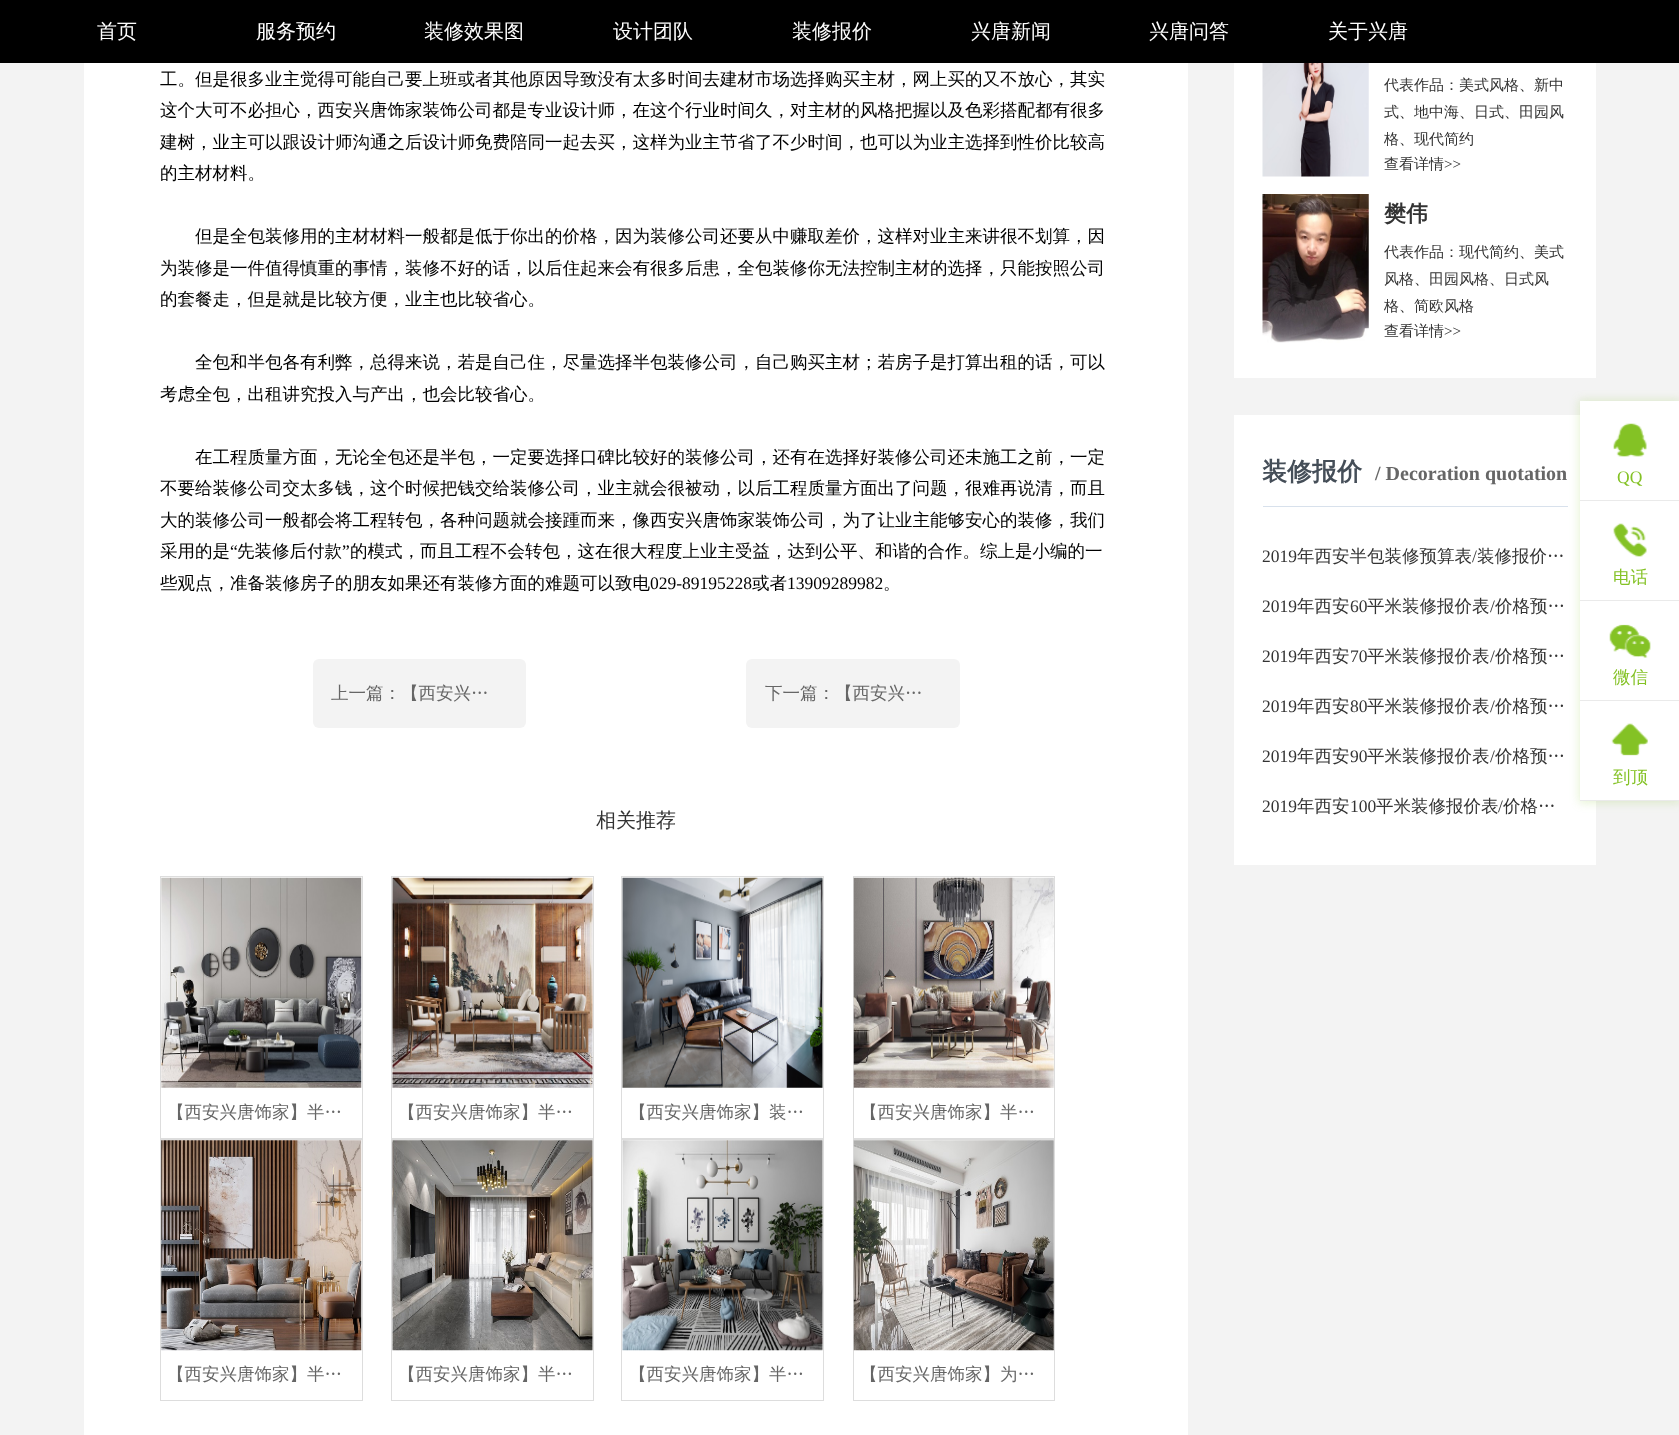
async function draw(canvas) {
	canvas.width = 1679;
	canvas.height = 1435;
	const c = canvas.getContext('2d');
	c.miterLimit = 4;
	c.fontKerning = 'normal';
	async function loadImage(src) {
		const img = new Image();
		img.src = src;
		await img.decode();
		return img;
	}

	c.fillStyle = '#f3f3f3';
	c.fillRect(0, 0, 1679, 1435);
	c.fillStyle = '#000';
	c.fillRect(0, 0, 1679, 63);
	c.font = '500 20px WenQuanYi Zen Hei';
	c.fillStyle = '#fff';
	for (const [text, x, y] of [
		['首页', 97, 38],
		['服务预约', 256, 38],
		['装修效果图', 424, 38],
		['设计团队', 613, 38],
		['装修报价', 792, 38],
		['兴唐新闻', 971, 38],
		['兴唐问答', 1149, 38],
		['关于兴唐', 1328, 38],
	]) {
		c.fillText(text, x, y);
	}
	c.fillRect(84, 63, 1104, 1372);
	c.font = '500 17.5px WenQuanYi Zen Hei';
	c.fillStyle = '#000';
	for (const [text, x, y] of [
		['工。但是很多业主觉得可能自己要上班或者其他原因导致没有太多时间去建材市场选择购买主材，网上买的又不放心，其实', 160, 85],
		['这个大可不必担心，西安兴唐饰家装饰公司都是专业设计师，在这个行业时间久，对主材的风格把握以及色彩搭配都有很多', 160, 116],
		['建树，业主可以跟设计师沟通之后设计师免费陪同一起去买，这样为业主节省了不少时间，也可以为业主选择到性价比较高', 160, 148],
		['的主材材料。', 160, 179],
		['但是全包装修用的主材材料一般都是低于你出的价格，因为装修公司还要从中赚取差价，这样对业主来讲很不划算，因', 195, 242],
		['为装修是一件值得慎重的事情，装修不好的话，以后住起来会有很多后患，全包装修你无法控制主材的选择，只能按照公司', 160, 274],
		['的套餐走，但是就是比较方便，业主也比较省心。', 160, 305],
		['全包和半包各有利弊，总得来说，若是自己住，尽量选择半包装修公司，自己购买主材；若房子是打算出租的话，可以', 195, 368],
		['考虑全包，出租讲究投入与产出，也会比较省心。', 160, 400],
		['在工程质量方面，无论全包还是半包，一定要选择口碑比较好的装修公司，还有在选择好装修公司还未施工之前，一定', 195, 463],
		['不要给装修公司交太多钱，这个时候把钱交给装修公司，业主就会很被动，以后工程质量方面出了问题，很难再说清，而且', 160, 494],
		['大的装修公司一般都会将工程转包，各种问题就会接踵而来，像西安兴唐饰家装饰公司，为了让业主能够安心的装修，我们', 160, 526],
		['采用的是', 160, 557],
	]) {
		c.fillText(text, x, y);
	}
	c.font = '17.5px Liberation Serif';
	c.fillText('“', 230, 557);
	c.font = '500 17.5px WenQuanYi Zen Hei';
	c.fillText('先装修后付款', 237, 557);
	c.font = '17.5px Liberation Serif';
	c.fillText('”', 342, 557);
	c.font = '500 17.5px WenQuanYi Zen Hei';
	c.fillText('的模式，而且工程不会转包，这在很大程度上业主受益，达到公平、和谐的合作。综上是小编的一', 350, 557);
	c.fillText('些观点，准备装修房子的朋友如果还有装修方面的难题可以致电', 160, 589);
	c.font = '17.5px Liberation Serif';
	c.fillText('029-89195228', 650, 589);
	c.font = '500 17.5px WenQuanYi Zen Hei';
	c.fillText('或者', 752, 589);
	c.font = '17.5px Liberation Serif';
	c.fillText('13909289982', 787, 589);
	c.font = '500 17.5px WenQuanYi Zen Hei';
	c.fillText('。', 883, 589);
	c.fillStyle = '#f3f3f3';
	c.beginPath();
	c.roundRect(313, 659, 213, 69, 6);
	c.fill();
	c.fillStyle = '#666';
	c.fillText('上一篇：【西安兴…', 331, 699);
	c.fillStyle = '#f3f3f3';
	c.beginPath();
	c.roundRect(746, 659, 214, 69, 6);
	c.fill();
	c.fillStyle = '#666';
	c.fillText('下一篇：【西安兴…', 765, 699);
	c.font = '500 20px WenQuanYi Zen Hei';
	c.fillStyle = '#333';
	c.fillText('相关推荐', 596, 827);
	c.strokeStyle = '#ddd';
	c.strokeRect(160.5, 876.5, 202, 262);
	c.drawImage(await loadImage('img1.png'), 161, 877, 201, 211);
	c.font = '500 17.5px WenQuanYi Zen Hei';
	c.fillStyle = '#666';
	c.fillText('【西安兴唐饰家】半…', 167, 1118);
	c.strokeRect(391.5, 876.5, 202, 262);
	c.drawImage(await loadImage('img2.png'), 392, 877, 201, 211);
	c.fillText('【西安兴唐饰家】半…', 398, 1118);
	c.strokeRect(621.5, 876.5, 202, 262);
	c.drawImage(await loadImage('img3.png'), 622, 877, 201, 211);
	c.fillText('【西安兴唐饰家】装…', 629, 1118);
	c.strokeRect(853.5, 876.5, 201, 262);
	c.drawImage(await loadImage('img4.png'), 853, 877, 201, 211);
	c.fillText('【西安兴唐饰家】半…', 860, 1118);
	c.strokeRect(160.5, 1139.5, 202, 261);
	c.drawImage(await loadImage('img5.png'), 161, 1140, 201, 211);
	c.fillText('【西安兴唐饰家】半…', 167, 1380);
	c.strokeRect(391.5, 1139.5, 202, 261);
	c.drawImage(await loadImage('img6.png'), 392, 1140, 201, 211);
	c.fillText('【西安兴唐饰家】半…', 398, 1380);
	c.strokeRect(621.5, 1139.5, 202, 261);
	c.drawImage(await loadImage('img7.png'), 622, 1140, 201, 211);
	c.fillText('【西安兴唐饰家】半…', 629, 1380);
	c.strokeRect(853.5, 1139.5, 201, 261);
	c.drawImage(await loadImage('img8.png'), 853, 1140, 201, 211);
	c.fillText('【西安兴唐饰家】为…', 860, 1380);
	c.fillStyle = '#fff';
	c.fillRect(1234, 63, 362, 315);
	c.drawImage(await loadImage('img9.png'), 1262, 63, 107, 114);
	c.font = '500 15px WenQuanYi Zen Hei';
	c.fillStyle = '#333';
	for (const [text, x, y] of [
		['代表作品：美式风格、新中', 1384, 90],
		['式、地中海、日式、田园风', 1384, 117],
		['格、现代简约', 1384, 144],
		['查看详情', 1384, 169],
	]) {
		c.fillText(text, x, y);
	}
	c.font = '15px Liberation Serif';
	c.fillText('>>', 1444, 169);
	c.drawImage(await loadImage('img10.png'), 1262, 194, 107, 149);
	c.font = 'bold 22px WenQuanYi Zen Hei';
	c.fillText('樊伟', 1384, 221);
	c.font = '500 15px WenQuanYi Zen Hei';
	for (const [text, x, y] of [
		['代表作品：现代简约、美式', 1384, 257],
		['风格、田园风格、日式风', 1384, 284],
		['格、简欧风格', 1384, 311],
		['查看详情', 1384, 336],
	]) {
		c.fillText(text, x, y);
	}
	c.font = '15px Liberation Serif';
	c.fillText('>>', 1444, 336);
	c.fillStyle = '#fff';
	c.fillRect(1234, 415, 362, 450);
	c.fillStyle = '#d8e1ec';
	c.fillRect(1263, 506, 305, 1);
	c.font = 'bold 25px WenQuanYi Zen Hei';
	c.fillStyle = '#454e58';
	c.fillText('装修报价', 1262, 480);
	c.font = 'bold 20px Liberation Serif';
	c.fillStyle = '#666';
	c.fillText('/ Decoration quotation', 1375, 480);
	c.font = '17.5px Liberation Serif';
	c.fillStyle = '#333';
	c.fillText('2019', 1262, 562);
	c.font = '500 17.5px WenQuanYi Zen Hei';
	c.fillText('年西安半包装修预算表', 1297, 562);
	c.font = '17.5px Liberation Serif';
	c.fillText('/', 1472, 562);
	c.font = '500 17.5px WenQuanYi Zen Hei';
	c.fillText('装修报价…', 1477, 562);
	c.font = '17.5px Liberation Serif';
	c.fillText('2019', 1262, 612);
	c.font = '500 17.5px WenQuanYi Zen Hei';
	c.fillText('年西安', 1297, 612);
	c.font = '17.5px Liberation Serif';
	c.fillText('60', 1350, 612);
	c.font = '500 17.5px WenQuanYi Zen Hei';
	c.fillText('平米装修报价表', 1367, 612);
	c.font = '17.5px Liberation Serif';
	c.fillText('/', 1490, 612);
	c.font = '500 17.5px WenQuanYi Zen Hei';
	c.fillText('价格预…', 1495, 612);
	c.font = '17.5px Liberation Serif';
	c.fillText('2019', 1262, 662);
	c.font = '500 17.5px WenQuanYi Zen Hei';
	c.fillText('年西安', 1297, 662);
	c.font = '17.5px Liberation Serif';
	c.fillText('70', 1350, 662);
	c.font = '500 17.5px WenQuanYi Zen Hei';
	c.fillText('平米装修报价表', 1367, 662);
	c.font = '17.5px Liberation Serif';
	c.fillText('/', 1490, 662);
	c.font = '500 17.5px WenQuanYi Zen Hei';
	c.fillText('价格预…', 1495, 662);
	c.font = '17.5px Liberation Serif';
	c.fillText('2019', 1262, 712);
	c.font = '500 17.5px WenQuanYi Zen Hei';
	c.fillText('年西安', 1297, 712);
	c.font = '17.5px Liberation Serif';
	c.fillText('80', 1350, 712);
	c.font = '500 17.5px WenQuanYi Zen Hei';
	c.fillText('平米装修报价表', 1367, 712);
	c.font = '17.5px Liberation Serif';
	c.fillText('/', 1490, 712);
	c.font = '500 17.5px WenQuanYi Zen Hei';
	c.fillText('价格预…', 1495, 712);
	c.font = '17.5px Liberation Serif';
	c.fillText('2019', 1262, 762);
	c.font = '500 17.5px WenQuanYi Zen Hei';
	c.fillText('年西安', 1297, 762);
	c.font = '17.5px Liberation Serif';
	c.fillText('90', 1350, 762);
	c.font = '500 17.5px WenQuanYi Zen Hei';
	c.fillText('平米装修报价表', 1367, 762);
	c.font = '17.5px Liberation Serif';
	c.fillText('/', 1490, 762);
	c.font = '500 17.5px WenQuanYi Zen Hei';
	c.fillText('价格预…', 1495, 762);
	c.font = '17.5px Liberation Serif';
	c.fillText('2019', 1262, 812);
	c.font = '500 17.5px WenQuanYi Zen Hei';
	c.fillText('年西安', 1297, 812);
	c.font = '17.5px Liberation Serif';
	c.fillText('100', 1350, 812);
	c.font = '500 17.5px WenQuanYi Zen Hei';
	c.fillText('平米装修报价表', 1376, 812);
	c.font = '17.5px Liberation Serif';
	c.fillText('/', 1498, 812);
	c.font = '500 17.5px WenQuanYi Zen Hei';
	c.fillText('价格…', 1503, 812);
	c.fillStyle = '#84c22533';
	c.filter = 'blur(5px)';
	c.beginPath();
	c.rect(1579, 400, 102, 403);
	c.fill();
	c.filter = 'none';
	c.fillStyle = '#fff';
	c.fillRect(1580, 401, 99, 399);
	c.fillStyle = '#eaeaea';
	c.fillRect(1580, 500, 99, 1);
	c.drawImage(await loadImage('img11.png'), 1613, 423, 34, 34);
	c.font = '17.5px Liberation Serif';
	c.fillStyle = '#84c225';
	c.fillText('QQ', 1617, 483);
	c.fillStyle = '#eaeaea';
	c.fillRect(1580, 600, 99, 1);
	c.drawImage(await loadImage('img12.png'), 1613, 523, 34, 34);
	c.font = '500 17.5px WenQuanYi Zen Hei';
	c.fillStyle = '#84c225';
	c.fillText('电话', 1613, 583);
	c.fillStyle = '#eaeaea';
	c.fillRect(1580, 700, 99, 1);
	c.drawImage(await loadImage('img13.png'), 1609, 624, 42, 34);
	c.fillStyle = '#84c225';
	c.fillText('微信', 1613, 683);
	c.fillStyle = '#eaeaea';
	c.fillRect(1580, 800, 99, 1);
	c.drawImage(await loadImage('img14.png'), 1611, 723, 37, 33);
	c.fillStyle = '#84c225';
	c.fillText('到顶', 1613, 783);
}

draw(document.querySelector('canvas'));
